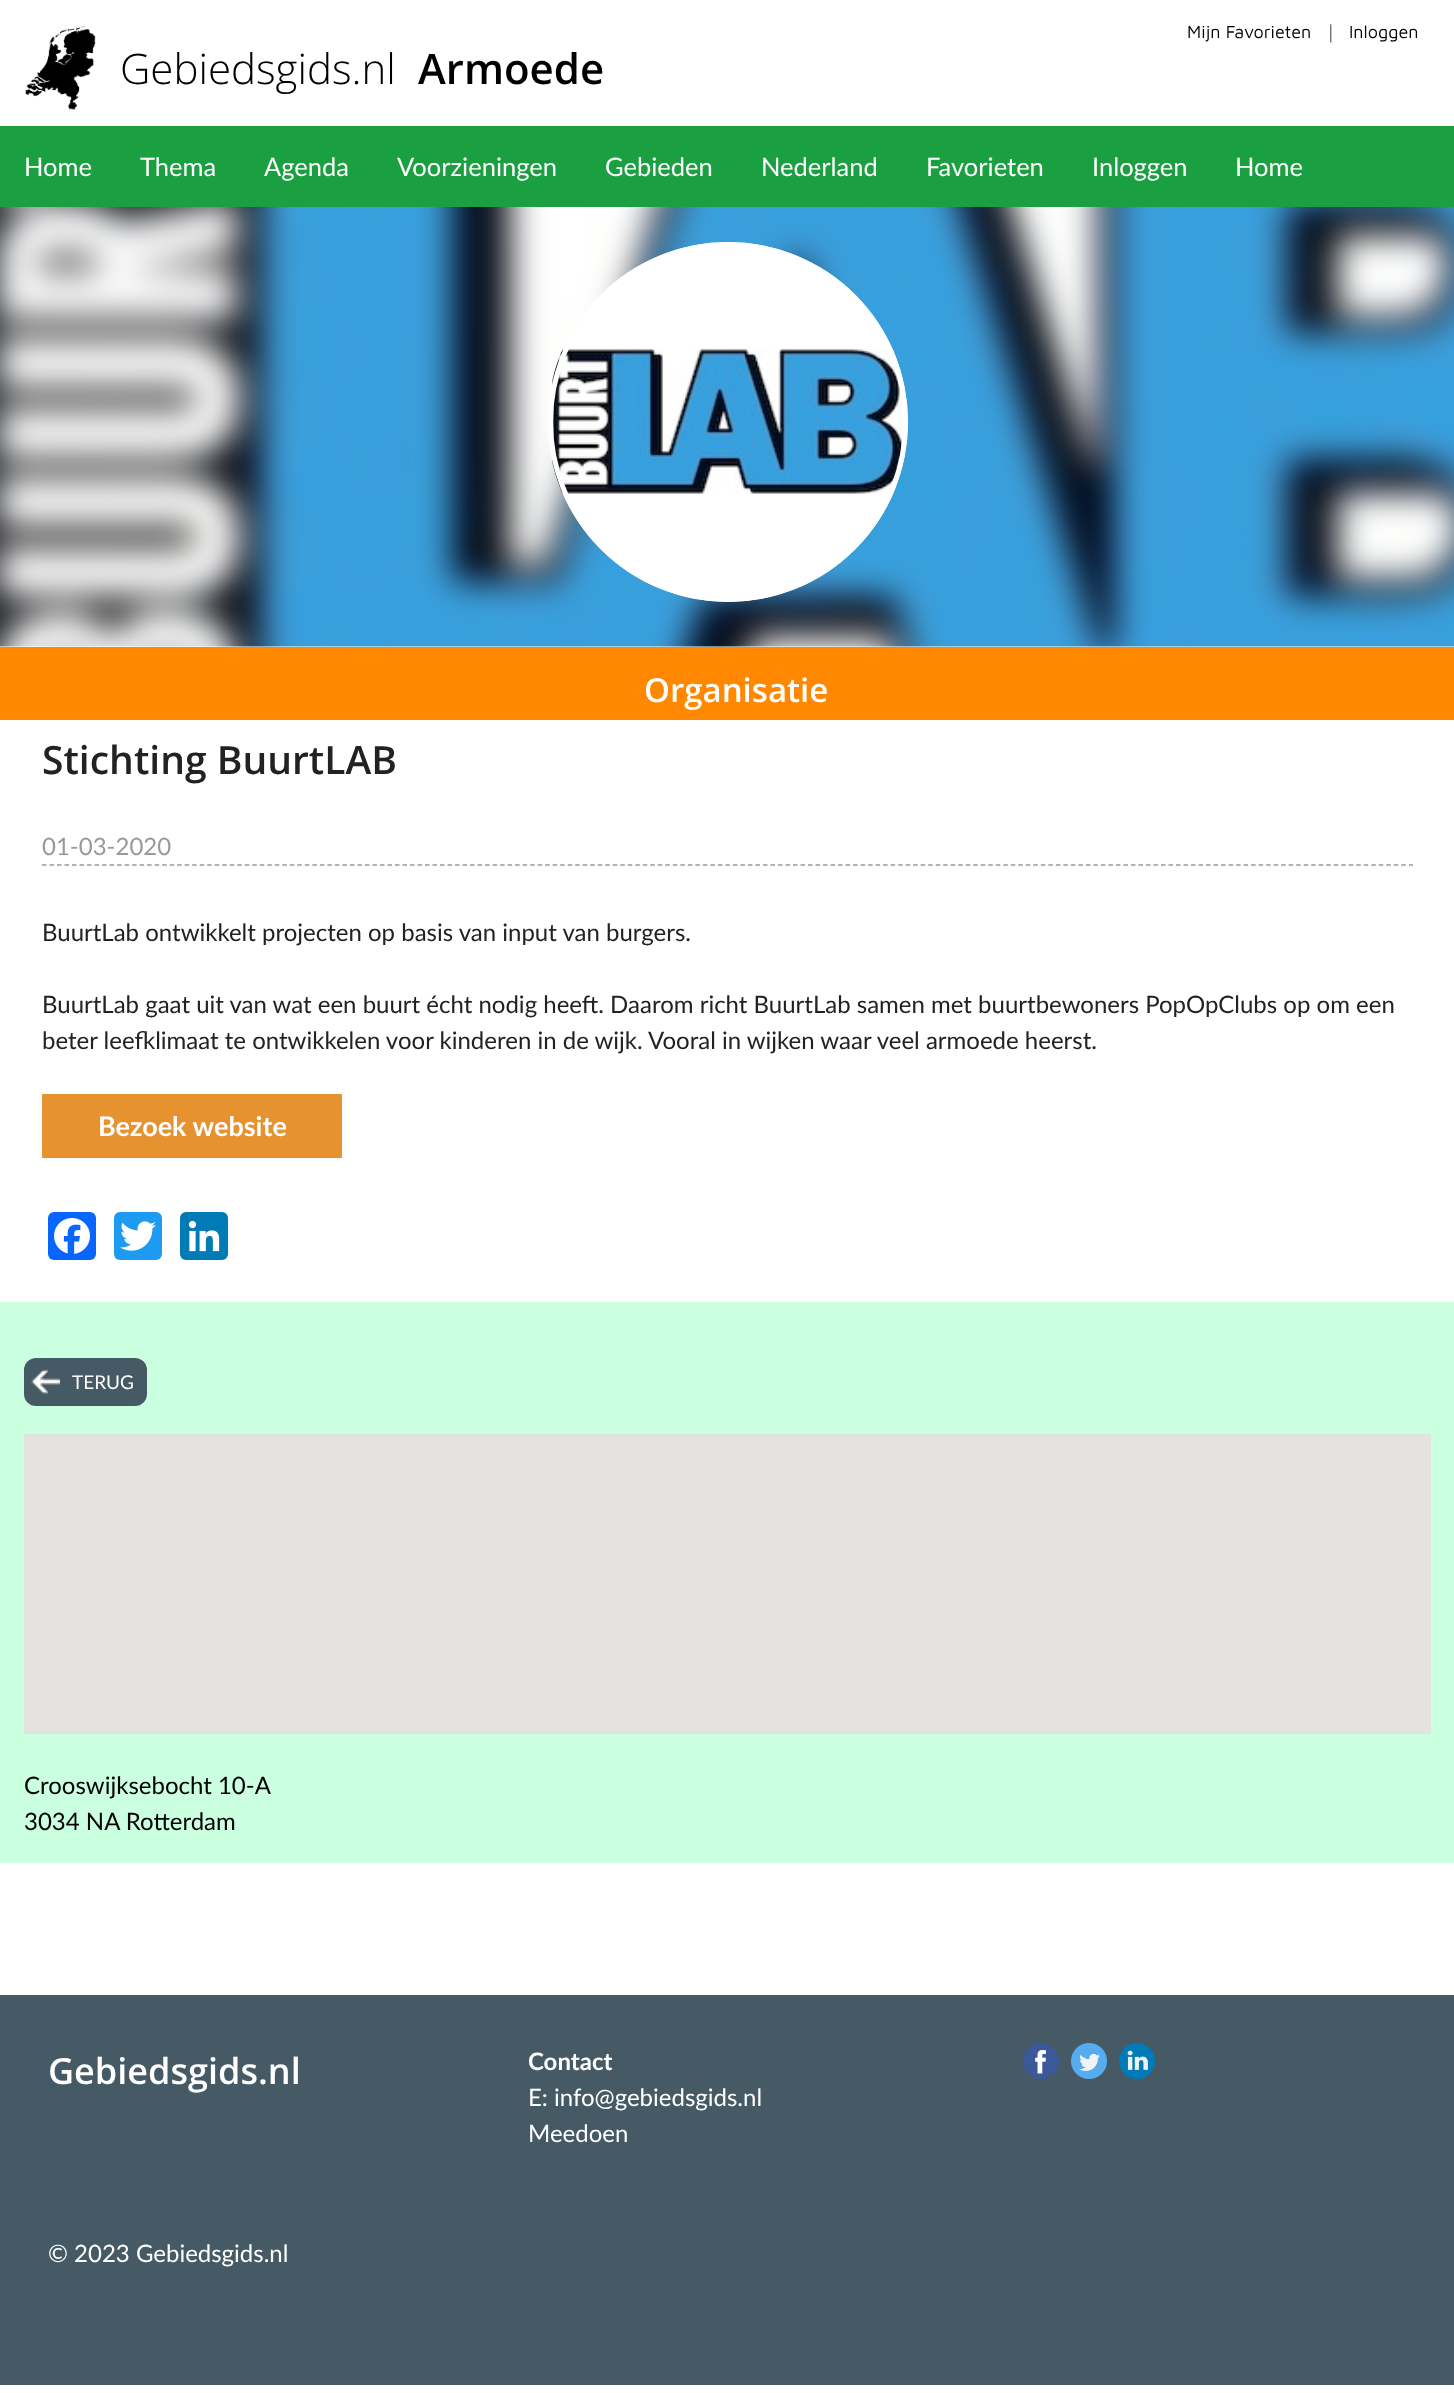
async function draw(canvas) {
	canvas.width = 1454;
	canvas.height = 2393;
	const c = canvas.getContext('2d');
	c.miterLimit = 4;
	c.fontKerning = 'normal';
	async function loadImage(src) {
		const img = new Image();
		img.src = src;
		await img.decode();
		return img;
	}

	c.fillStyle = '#fff';
	c.fillRect(0, 0, 1454, 2393);
	c.font = '18px Maven Pro';
	c.fillStyle = '#000';
	c.fillText('Mijn Favorieten', 1187, 38);
	c.font = '300 18px Open Sans';
	c.fillText('|', 1326, 38);
	c.font = '18px Maven Pro';
	c.fillText('Inloggen', 1349, 38);
	c.drawImage(await loadImage('img1.png'), 25, 26, 71, 84);
	c.font = '300 42px Open Sans';
	c.fillText('Gebiedsgids.nl', 120, 84);
	c.font = '600 42px Open Sans';
	c.fillText('Armoede', 418, 84);
	c.fillStyle = '#1aa041';
	c.fillRect(0, 126, 1454, 81);
	c.font = '25.5px Lato';
	c.fillStyle = '#fff';
	for (const [text, x, y] of [
		['Home', 24, 176],
		['Thema', 140, 176],
		['Agenda', 264, 176],
		['Voorzieningen', 397, 176],
		['Gebieden', 605, 176],
		['Nederland', 761, 176],
		['Favorieten', 926, 176],
		['Inloggen', 1092, 176],
		['Home', 1235, 176],
	]) {
		c.fillText(text, x, y);
	}
	c.font = '600 39px Open Sans';
	c.fillStyle = '#222';
	c.fillText('Stichting BuurtLAB', 42, 774);
	c.beginPath();
	c.moveTo(42, 865);
	c.lineTo(1413, 865);
	c.strokeStyle = '#999';
	c.lineWidth = 1.5;
	c.setLineDash([4.5, 3.01]);
	c.stroke();
	c.font = '24px Lato';
	c.fillStyle = '#999';
	c.fillText('01-03-2020', 42, 855);
	c.fillStyle = '#222';
	for (const [text, x, y] of [
		['BuurtLab ontwikkelt projecten op basis van input van burgers.', 42, 941],
		['BuurtLab gaat uit van wat een buurt écht nodig heeft. Daarom richt BuurtLab samen met buurtbewoners PopOpClubs op om een', 42, 1013],
		['beter leefklimaat te ontwikkelen voor kinderen in de wijk. Vooral in wijken waar veel armoede heerst.', 42, 1049],
	]) {
		c.fillText(text, x, y);
	}
	c.fillStyle = '#e5922f';
	c.fillRect(42, 1094, 300, 64);
	c.font = 'bold 27px Lato';
	c.fillStyle = '#fff';
	c.fillText('Bezoek website', 98, 1136);
	c.fillStyle = '#0866ff';
	c.beginPath();
	c.roundRect(48, 1212, 48, 48, 6);
	c.fill();
	c.drawImage(await loadImage('img2.png'), 54, 1218, 36, 36);
	c.fillStyle = '#1d9bf0';
	c.beginPath();
	c.roundRect(114, 1212, 48, 48, 6);
	c.fill();
	c.drawImage(await loadImage('img3.png'), 120, 1221, 36, 30);
	c.fillStyle = '#007bb5';
	c.beginPath();
	c.roundRect(180, 1212, 48, 48, 6);
	c.fill();
	c.drawImage(await loadImage('img4.png'), 188, 1220, 32, 32);
	c.fillStyle = '#caffe0';
	c.fillRect(0, 1302, 1454, 561);
	c.fillStyle = '#455a64';
	c.beginPath();
	c.roundRect(24, 1358, 123, 48, 12);
	c.fill();
	c.drawImage(await loadImage('img5.png'), 31, 1369, 29, 25);
	c.font = '19px Lato';
	c.fillStyle = '#fff';
	c.fillText('TERUG', 72, 1389);
	c.fillStyle = '#e5e3df';
	c.fillRect(24, 1434, 1407, 300);
	c.font = '24px Lato';
	c.fillStyle = '#000';
	c.fillText('Crooswijksebocht 10-A', 24, 1794);
	c.fillText('3034 NA Rotterdam', 24, 1830);
	c.fillStyle = '#f80';
	c.fillRect(0, 647, 1454, 73);
	c.font = '600 33px Open Sans';
	c.fillStyle = '#fff';
	c.fillText('Organisatie', 644, 702);
	c.drawImage(await loadImage('img6.png'), 0, 207, 1454, 440);
	c.beginPath();
	c.arc(728, 422, 180, 0, 2 * Math.PI);
	c.fill();
	c.drawImage(await loadImage('img7.png'), 552, 349, 351, 145);
	c.beginPath();
	c.arc(728, 422, 177.5, 0, 2 * Math.PI);
	c.strokeStyle = '#fff';
	c.lineWidth = 5;
	c.setLineDash([]);
	c.stroke();
	c.fillStyle = '#455a64';
	c.fillRect(0, 1995, 1454, 390);
	c.font = '600 36px Open Sans';
	c.fillStyle = '#fff';
	c.fillText('Gebiedsgids.nl', 48, 2084);
	c.font = 'bold 24px Lato';
	c.fillText('Contact', 528, 2070);
	c.font = '24px Lato';
	c.fillText('E: info@gebiedsgids.nl', 528, 2106);
	c.fillText('Meedoen', 528, 2142);
	c.drawImage(await loadImage('img8.png'), 1023, 2043, 36, 36);
	c.drawImage(await loadImage('img9.png'), 1071, 2043, 36, 36);
	c.drawImage(await loadImage('img10.png'), 1119, 2043, 36, 36);
	c.fillText('© 2023 Gebiedsgids.nl', 48, 2262);
}

draw(document.querySelector('canvas'));
